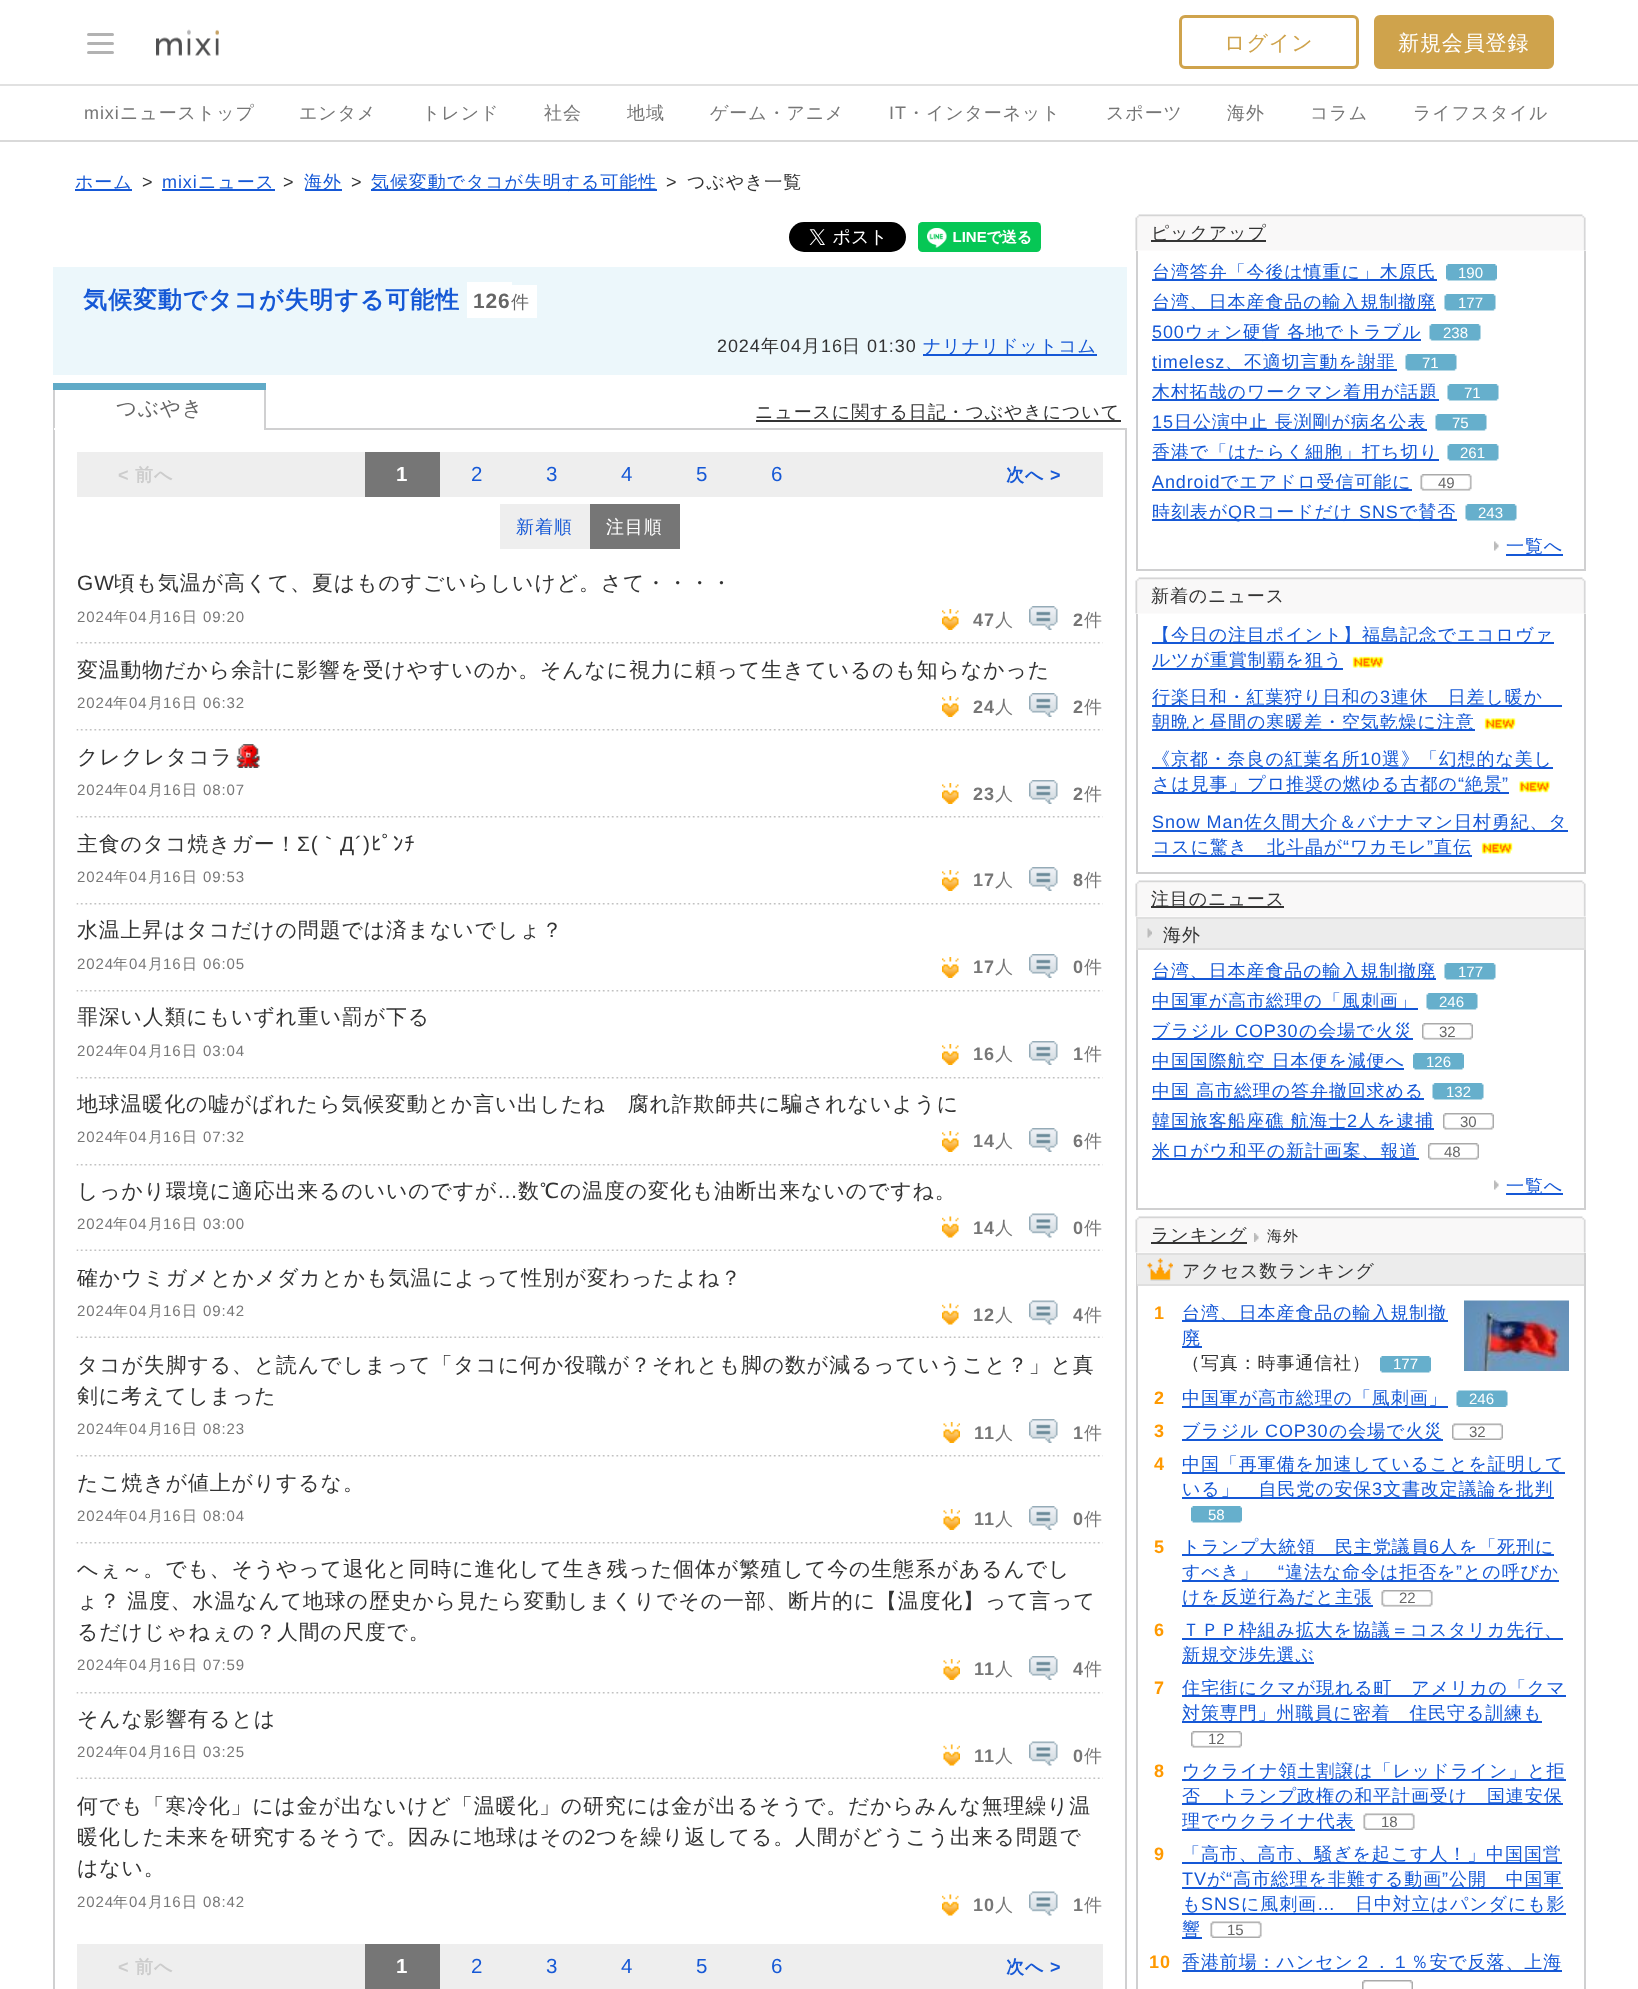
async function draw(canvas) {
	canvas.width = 1638;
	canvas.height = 1989;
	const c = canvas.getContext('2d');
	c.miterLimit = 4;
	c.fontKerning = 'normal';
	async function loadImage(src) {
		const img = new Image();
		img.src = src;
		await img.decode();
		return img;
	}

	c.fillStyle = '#fff';
	c.fillRect(0, 0, 1638, 1989);
	c.fillStyle = '#e1e1e1';
	c.fillRect(0, 84, 1638, 2);
	c.fillStyle = '#b2b2b2';
	c.beginPath();
	c.roundRect(87, 33, 27, 3, 1.5);
	c.fill();
	c.beginPath();
	c.roundRect(87, 42, 27, 3, 1.5);
	c.fill();
	c.beginPath();
	c.roundRect(87, 51, 27, 3, 1.5);
	c.fill();
	c.drawImage(await loadImage('img1.png'), 156, 29, 63, 27);
	c.beginPath();
	c.roundRect(1180.5, 16.5, 177, 51, 4.5);
	c.strokeStyle = '#cfa34c';
	c.lineWidth = 3;
	c.stroke();
	c.letterSpacing = '0.9px';
	c.font = '500 21px WenQuanYi Zen Hei';
	c.fillStyle = '#cfa34c';
	c.fillText('ログイン', 1224, 50);
	c.beginPath();
	c.roundRect(1375.5, 16.5, 177, 51, 4.5);
	c.fill();
	c.stroke();
	c.fillStyle = '#fff';
	c.fillText('新規会員登録', 1398, 50);
	c.fillStyle = '#d9d9d9';
	c.fillRect(0, 140, 1638, 2);
	c.font = '18px Liberation Sans';
	c.fillStyle = '#767676';
	c.fillText('mixi', 84, 119);
	c.font = '500 18px WenQuanYi Zen Hei';
	for (const [text, x, y] of [
		['ニューストップ', 120, 119],
		['エンタメ', 299, 119],
		['トレンド', 422, 119],
		['社会', 544, 119],
		['地域', 627, 119],
		['ゲーム・アニメ', 710, 119],
	]) {
		c.fillText(text, x, y);
	}
	c.font = '18px Liberation Sans';
	c.fillText('IT', 889, 119);
	c.font = '500 18px WenQuanYi Zen Hei';
	for (const [text, x, y] of [
		['・インターネット', 907, 119],
		['スポーツ', 1106, 119],
		['海外', 1227, 119],
		['コラム', 1310, 119],
		['ライフスタイル', 1413, 119],
	]) {
		c.fillText(text, x, y);
	}
	c.fillStyle = '#1558d6';
	c.fillRect(75, 189, 57, 2);
	c.fillText('ホーム', 75, 188);
	c.font = '18px Liberation Sans';
	c.fillStyle = '#333';
	c.fillText('>', 142, 188);
	c.fillStyle = '#1558d6';
	c.fillText('mixi', 162, 188);
	c.font = '500 18px WenQuanYi Zen Hei';
	c.fillText('ニュース', 198, 188);
	c.fillRect(162, 189, 113, 2);
	c.font = '18px Liberation Sans';
	c.fillStyle = '#333';
	c.fillText('>', 283, 188);
	c.fillStyle = '#1558d6';
	c.fillRect(305, 189, 37, 2);
	c.font = '500 18px WenQuanYi Zen Hei';
	c.fillText('海外', 304, 188);
	c.font = '18px Liberation Sans';
	c.fillStyle = '#333';
	c.fillText('>', 351, 188);
	c.fillStyle = '#1558d6';
	c.fillRect(371, 189, 286, 2);
	c.font = '500 18px WenQuanYi Zen Hei';
	c.fillText('気候変動でタコが失明する可能性', 371, 188);
	c.font = '18px Liberation Sans';
	c.fillStyle = '#333';
	c.fillText('>', 666, 188);
	c.font = '500 18px WenQuanYi Zen Hei';
	c.fillText('つぶやき一覧', 687, 188);
	c.drawImage(await loadImage('img2.png'), 789, 222, 117, 30);
	c.drawImage(await loadImage('img3.png'), 918, 222, 123, 30);
	c.fillStyle = '#ecf7fb';
	c.fillRect(53, 267, 1074, 108);
	c.font = 'bold 24px WenQuanYi Zen Hei';
	c.fillStyle = '#1558d6';
	c.fillText('気候変動でタコが失明する可能性', 83, 308);
	c.fillStyle = '#fff';
	c.fillRect(467, 282, 45, 36);
	c.font = 'bold 20.9px Liberation Sans';
	c.fillStyle = '#666';
	c.fillText('126', 473, 308);
	c.fillStyle = '#fff';
	c.fillRect(512, 285, 25, 33);
	c.font = '500 18px WenQuanYi Zen Hei';
	c.fillStyle = '#666';
	c.fillText('件', 511, 308);
	c.font = '18px Liberation Sans';
	c.fillStyle = '#333';
	c.fillText('2024', 717, 352);
	c.font = '500 18px WenQuanYi Zen Hei';
	c.fillText('年', 761, 352);
	c.font = '18px Liberation Sans';
	c.fillText('04', 780, 352);
	c.font = '500 18px WenQuanYi Zen Hei';
	c.fillText('月', 802, 352);
	c.font = '18px Liberation Sans';
	c.fillText('16', 821, 352);
	c.font = '500 18px WenQuanYi Zen Hei';
	c.fillText('日', 842, 352);
	c.font = '18px Liberation Sans';
	c.fillText('01:30', 867, 352);
	c.fillStyle = '#1558d6';
	c.fillRect(923, 354, 174, 2);
	c.font = '500 18px WenQuanYi Zen Hei';
	c.fillText('ナリナリドットコム', 923, 352);
	c.fillStyle = '#60aac7';
	c.fillRect(53, 383, 213, 7);
	c.strokeStyle = '#d0d0d1';
	c.lineWidth = 2;
	c.strokeRect(54, 429, 1072, 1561);
	for (const [x, y, w, h, color] of [
		[264, 390, 2, 39, '#d0d0d1'],
		[53, 390, 2, 39, '#d0d0d1'],
		[54, 428, 210, 2, '#fff'],
	]) {
		c.fillStyle = color;
		c.fillRect(x, y, w, h);
	}
	c.font = '500 20.5px WenQuanYi Zen Hei';
	c.fillStyle = '#666';
	c.fillText('つぶやき', 116, 415);
	c.fillStyle = '#333';
	c.fillRect(756, 420, 365, 2);
	c.font = '500 18px WenQuanYi Zen Hei';
	c.fillText('ニュースに関する日記・つぶやきについて', 755, 418);
	c.fillStyle = '#eee';
	c.fillRect(77, 452, 1026, 45);
	c.font = 'bold 18px Liberation Sans';
	c.fillStyle = '#ccc';
	c.fillText('<', 118, 481);
	c.font = 'bold 18px WenQuanYi Zen Hei';
	c.fillText('前へ', 135, 481);
	c.fillStyle = '#767676';
	c.fillRect(365, 452, 75, 45);
	c.font = 'bold 20.5px Liberation Sans';
	c.fillStyle = '#fff';
	c.fillText('1', 396, 481);
	c.font = '20.5px Liberation Sans';
	c.fillStyle = '#1558d6';
	for (const [text, x, y] of [
		['2', 471, 481],
		['3', 546, 481],
		['4', 621, 481],
		['5', 696, 481],
		['6', 771, 481],
	]) {
		c.fillText(text, x, y);
	}
	c.font = 'bold 18px WenQuanYi Zen Hei';
	c.fillText('次へ', 1006, 481);
	c.font = 'bold 18px Liberation Sans';
	c.fillText('>', 1050, 481);
	c.fillStyle = '#eee';
	c.fillRect(500, 504, 90, 45);
	c.font = '500 18px WenQuanYi Zen Hei';
	c.fillStyle = '#1558d6';
	c.fillText('新着順', 516, 533);
	c.fillStyle = '#767676';
	c.fillRect(590, 504, 90, 45);
	c.fillStyle = '#fff';
	c.fillText('注目順', 606, 533);
	c.drawImage(await loadImage('img4.png'), 76, 642, 1027, 2);
	c.font = '20.9px Liberation Sans';
	c.fillStyle = '#333';
	c.fillText('GW', 77, 590);
	c.font = '500 20.9px WenQuanYi Zen Hei';
	c.fillText('頃も気温が高くて、夏はものすごいらしいけど。さて・・・・', 114, 590);
	c.font = '15px Liberation Sans';
	c.fillStyle = '#767676';
	c.fillText('2024', 77, 622);
	c.font = '500 15px WenQuanYi Zen Hei';
	c.fillText('年', 113, 622);
	c.font = '15px Liberation Sans';
	c.fillText('04', 129, 622);
	c.font = '500 15px WenQuanYi Zen Hei';
	c.fillText('月', 148, 622);
	c.font = '15px Liberation Sans';
	c.fillText('16', 163, 622);
	c.font = '500 15px WenQuanYi Zen Hei';
	c.fillText('日', 182, 622);
	c.font = '15px Liberation Sans';
	c.fillText('09:20', 203, 622);
	c.drawImage(await loadImage('img5.png'), 942, 609, 17, 21);
	c.font = 'bold 18px Liberation Sans';
	c.fillText('47', 973, 626);
	c.font = '500 18px WenQuanYi Zen Hei';
	c.fillText('人', 995, 626);
	c.drawImage(await loadImage('img6.png'), 1029, 606, 29, 24);
	c.font = 'bold 18px Liberation Sans';
	c.fillText('2', 1073, 626);
	c.font = '500 18px WenQuanYi Zen Hei';
	c.fillText('件', 1084, 626);
	c.drawImage(await loadImage('img4.png'), 76, 729, 1027, 2);
	c.font = '500 20.9px WenQuanYi Zen Hei';
	c.fillStyle = '#333';
	c.fillText('変温動物だから余計に影響を受けやすいのか。そんなに視力に頼って生きているのも知らなかった', 77, 677);
	c.font = '15px Liberation Sans';
	c.fillStyle = '#767676';
	c.fillText('2024', 77, 708);
	c.font = '500 15px WenQuanYi Zen Hei';
	c.fillText('年', 113, 708);
	c.font = '15px Liberation Sans';
	c.fillText('04', 129, 708);
	c.font = '500 15px WenQuanYi Zen Hei';
	c.fillText('月', 148, 708);
	c.font = '15px Liberation Sans';
	c.fillText('16', 163, 708);
	c.font = '500 15px WenQuanYi Zen Hei';
	c.fillText('日', 182, 708);
	c.font = '15px Liberation Sans';
	c.fillText('06:32', 203, 708);
	c.drawImage(await loadImage('img5.png'), 942, 696, 17, 21);
	c.font = 'bold 18px Liberation Sans';
	c.fillText('24', 973, 713);
	c.font = '500 18px WenQuanYi Zen Hei';
	c.fillText('人', 995, 713);
	c.drawImage(await loadImage('img6.png'), 1029, 693, 29, 24);
	c.font = 'bold 18px Liberation Sans';
	c.fillText('2', 1073, 713);
	c.font = '500 18px WenQuanYi Zen Hei';
	c.fillText('件', 1084, 713);
	c.drawImage(await loadImage('img4.png'), 76, 816, 1027, 2);
	c.font = '500 20.9px WenQuanYi Zen Hei';
	c.fillStyle = '#333';
	c.fillText('クレクレタコラ', 77, 764);
	c.drawImage(await loadImage('img7.png'), 236, 744, 24, 24);
	c.font = '15px Liberation Sans';
	c.fillStyle = '#767676';
	c.fillText('2024', 77, 795);
	c.font = '500 15px WenQuanYi Zen Hei';
	c.fillText('年', 113, 795);
	c.font = '15px Liberation Sans';
	c.fillText('04', 129, 795);
	c.font = '500 15px WenQuanYi Zen Hei';
	c.fillText('月', 148, 795);
	c.font = '15px Liberation Sans';
	c.fillText('16', 163, 795);
	c.font = '500 15px WenQuanYi Zen Hei';
	c.fillText('日', 182, 795);
	c.font = '15px Liberation Sans';
	c.fillText('08:07', 203, 795);
	c.drawImage(await loadImage('img5.png'), 942, 783, 17, 21);
	c.font = 'bold 18px Liberation Sans';
	c.fillText('23', 973, 800);
	c.font = '500 18px WenQuanYi Zen Hei';
	c.fillText('人', 995, 800);
	c.drawImage(await loadImage('img6.png'), 1029, 780, 29, 24);
	c.font = 'bold 18px Liberation Sans';
	c.fillText('2', 1073, 800);
	c.font = '500 18px WenQuanYi Zen Hei';
	c.fillText('件', 1084, 800);
	c.drawImage(await loadImage('img4.png'), 76, 903, 1027, 2);
	c.font = '500 20.9px WenQuanYi Zen Hei';
	c.fillStyle = '#333';
	c.fillText('主食のタコ焼きガー！', 77, 851);
	c.font = '20.9px Liberation Sans';
	c.fillText('Σ(', 297, 851);
	c.font = '500 20.9px WenQuanYi Zen Hei';
	c.fillText('｀', 318, 851);
	c.font = '20.9px Liberation Sans';
	c.fillText('Д´)', 340, 851);
	c.font = '20.9px IPAPGothic';
	c.fillText('ﾋﾟﾝﾁ', 371, 851);
	c.font = '15px Liberation Sans';
	c.fillStyle = '#767676';
	c.fillText('2024', 77, 882);
	c.font = '500 15px WenQuanYi Zen Hei';
	c.fillText('年', 113, 882);
	c.font = '15px Liberation Sans';
	c.fillText('04', 129, 882);
	c.font = '500 15px WenQuanYi Zen Hei';
	c.fillText('月', 148, 882);
	c.font = '15px Liberation Sans';
	c.fillText('16', 163, 882);
	c.font = '500 15px WenQuanYi Zen Hei';
	c.fillText('日', 182, 882);
	c.font = '15px Liberation Sans';
	c.fillText('09:53', 203, 882);
	c.drawImage(await loadImage('img5.png'), 942, 870, 17, 21);
	c.font = 'bold 18px Liberation Sans';
	c.fillText('17', 973, 886);
	c.font = '500 18px WenQuanYi Zen Hei';
	c.fillText('人', 995, 886);
	c.drawImage(await loadImage('img6.png'), 1029, 867, 29, 24);
	c.font = 'bold 18px Liberation Sans';
	c.fillText('8', 1073, 886);
	c.font = '500 18px WenQuanYi Zen Hei';
	c.fillText('件', 1084, 886);
	c.drawImage(await loadImage('img4.png'), 76, 990, 1027, 2);
	c.font = '500 20.9px WenQuanYi Zen Hei';
	c.fillStyle = '#333';
	c.fillText('水温上昇はタコだけの問題では済まないでしょ？', 77, 937);
	c.font = '15px Liberation Sans';
	c.fillStyle = '#767676';
	c.fillText('2024', 77, 969);
	c.font = '500 15px WenQuanYi Zen Hei';
	c.fillText('年', 113, 969);
	c.font = '15px Liberation Sans';
	c.fillText('04', 129, 969);
	c.font = '500 15px WenQuanYi Zen Hei';
	c.fillText('月', 148, 969);
	c.font = '15px Liberation Sans';
	c.fillText('16', 163, 969);
	c.font = '500 15px WenQuanYi Zen Hei';
	c.fillText('日', 182, 969);
	c.font = '15px Liberation Sans';
	c.fillText('06:05', 203, 969);
	c.drawImage(await loadImage('img5.png'), 942, 957, 17, 21);
	c.font = 'bold 18px Liberation Sans';
	c.fillText('17', 973, 973);
	c.font = '500 18px WenQuanYi Zen Hei';
	c.fillText('人', 995, 973);
	c.drawImage(await loadImage('img6.png'), 1029, 954, 29, 24);
	c.font = 'bold 18px Liberation Sans';
	c.fillText('0', 1073, 973);
	c.font = '500 18px WenQuanYi Zen Hei';
	c.fillText('件', 1084, 973);
	c.drawImage(await loadImage('img4.png'), 76, 1077, 1027, 2);
	c.font = '500 20.9px WenQuanYi Zen Hei';
	c.fillStyle = '#333';
	c.fillText('罪深い人類にもいずれ重い罰が下る', 77, 1024);
	c.font = '15px Liberation Sans';
	c.fillStyle = '#767676';
	c.fillText('2024', 77, 1056);
	c.font = '500 15px WenQuanYi Zen Hei';
	c.fillText('年', 113, 1056);
	c.font = '15px Liberation Sans';
	c.fillText('04', 129, 1056);
	c.font = '500 15px WenQuanYi Zen Hei';
	c.fillText('月', 148, 1056);
	c.font = '15px Liberation Sans';
	c.fillText('16', 163, 1056);
	c.font = '500 15px WenQuanYi Zen Hei';
	c.fillText('日', 182, 1056);
	c.font = '15px Liberation Sans';
	c.fillText('03:04', 203, 1056);
	c.drawImage(await loadImage('img5.png'), 942, 1044, 17, 21);
	c.font = 'bold 18px Liberation Sans';
	c.fillText('16', 973, 1060);
	c.font = '500 18px WenQuanYi Zen Hei';
	c.fillText('人', 995, 1060);
	c.drawImage(await loadImage('img6.png'), 1029, 1041, 29, 24);
	c.font = 'bold 18px Liberation Sans';
	c.fillText('1', 1073, 1060);
	c.font = '500 18px WenQuanYi Zen Hei';
	c.fillText('件', 1084, 1060);
	c.drawImage(await loadImage('img4.png'), 76, 1164, 1027, 2);
	c.font = '500 20.9px WenQuanYi Zen Hei';
	c.fillStyle = '#333';
	c.fillText('地球温暖化の嘘がばれたら気候変動とか言い出したね　腐れ詐欺師共に騙されないように', 77, 1111);
	c.font = '15px Liberation Sans';
	c.fillStyle = '#767676';
	c.fillText('2024', 77, 1142);
	c.font = '500 15px WenQuanYi Zen Hei';
	c.fillText('年', 113, 1142);
	c.font = '15px Liberation Sans';
	c.fillText('04', 129, 1142);
	c.font = '500 15px WenQuanYi Zen Hei';
	c.fillText('月', 148, 1142);
	c.font = '15px Liberation Sans';
	c.fillText('16', 163, 1142);
	c.font = '500 15px WenQuanYi Zen Hei';
	c.fillText('日', 182, 1142);
	c.font = '15px Liberation Sans';
	c.fillText('07:32', 203, 1142);
	c.drawImage(await loadImage('img5.png'), 942, 1131, 17, 21);
	c.font = 'bold 18px Liberation Sans';
	c.fillText('14', 973, 1147);
	c.font = '500 18px WenQuanYi Zen Hei';
	c.fillText('人', 995, 1147);
	c.drawImage(await loadImage('img6.png'), 1029, 1128, 29, 24);
	c.font = 'bold 18px Liberation Sans';
	c.fillText('6', 1073, 1147);
	c.font = '500 18px WenQuanYi Zen Hei';
	c.fillText('件', 1084, 1147);
	c.drawImage(await loadImage('img8.png'), 76, 1249, 1027, 2);
	c.font = '500 20.9px WenQuanYi Zen Hei';
	c.fillStyle = '#333';
	c.fillText('しっかり環境に適応出来るのいいのですが', 77, 1198);
	c.font = '20.9px Liberation Sans';
	c.fillText('…', 497, 1198);
	c.font = '500 20.9px WenQuanYi Zen Hei';
	c.fillText('数℃の温度の変化も油断出来ないのですね。', 518, 1198);
	c.font = '15px Liberation Sans';
	c.fillStyle = '#767676';
	c.fillText('2024', 77, 1229);
	c.font = '500 15px WenQuanYi Zen Hei';
	c.fillText('年', 113, 1229);
	c.font = '15px Liberation Sans';
	c.fillText('04', 129, 1229);
	c.font = '500 15px WenQuanYi Zen Hei';
	c.fillText('月', 148, 1229);
	c.font = '15px Liberation Sans';
	c.fillText('16', 163, 1229);
	c.font = '500 15px WenQuanYi Zen Hei';
	c.fillText('日', 182, 1229);
	c.font = '15px Liberation Sans';
	c.fillText('03:00', 203, 1229);
	c.drawImage(await loadImage('img9.png'), 942, 1216, 17, 22);
	c.font = 'bold 18px Liberation Sans';
	c.fillText('14', 973, 1234);
	c.font = '500 18px WenQuanYi Zen Hei';
	c.fillText('人', 995, 1234);
	c.drawImage(await loadImage('img10.png'), 1029, 1213, 29, 25);
	c.font = 'bold 18px Liberation Sans';
	c.fillText('0', 1073, 1234);
	c.font = '500 18px WenQuanYi Zen Hei';
	c.fillText('件', 1084, 1234);
	c.drawImage(await loadImage('img8.png'), 76, 1336, 1027, 2);
	c.font = '500 20.9px WenQuanYi Zen Hei';
	c.fillStyle = '#333';
	c.fillText('確かウミガメとかメダカとかも気温によって性別が変わったよね？', 77, 1285);
	c.font = '15px Liberation Sans';
	c.fillStyle = '#767676';
	c.fillText('2024', 77, 1316);
	c.font = '500 15px WenQuanYi Zen Hei';
	c.fillText('年', 113, 1316);
	c.font = '15px Liberation Sans';
	c.fillText('04', 129, 1316);
	c.font = '500 15px WenQuanYi Zen Hei';
	c.fillText('月', 148, 1316);
	c.font = '15px Liberation Sans';
	c.fillText('16', 163, 1316);
	c.font = '500 15px WenQuanYi Zen Hei';
	c.fillText('日', 182, 1316);
	c.font = '15px Liberation Sans';
	c.fillText('09:42', 203, 1316);
	c.drawImage(await loadImage('img9.png'), 942, 1303, 17, 22);
	c.font = 'bold 18px Liberation Sans';
	c.fillText('12', 973, 1321);
	c.font = '500 18px WenQuanYi Zen Hei';
	c.fillText('人', 995, 1321);
	c.drawImage(await loadImage('img10.png'), 1029, 1300, 29, 25);
	c.font = 'bold 18px Liberation Sans';
	c.fillText('4', 1073, 1321);
	c.font = '500 18px WenQuanYi Zen Hei';
	c.fillText('件', 1084, 1321);
	c.drawImage(await loadImage('img4.png'), 76, 1455, 1027, 2);
	c.font = '500 20.9px WenQuanYi Zen Hei';
	c.fillStyle = '#333';
	c.fillText('タコが失脚する、と読んでしまって「タコに何か役職が？それとも脚の数が減るっていうこと？」と真', 77, 1372);
	c.fillText('剣に考えてしまった', 77, 1403);
	c.font = '15px Liberation Sans';
	c.fillStyle = '#767676';
	c.fillText('2024', 77, 1434);
	c.font = '500 15px WenQuanYi Zen Hei';
	c.fillText('年', 113, 1434);
	c.font = '15px Liberation Sans';
	c.fillText('04', 129, 1434);
	c.font = '500 15px WenQuanYi Zen Hei';
	c.fillText('月', 148, 1434);
	c.font = '15px Liberation Sans';
	c.fillText('16', 163, 1434);
	c.font = '500 15px WenQuanYi Zen Hei';
	c.fillText('日', 182, 1434);
	c.font = '15px Liberation Sans';
	c.fillText('08:23', 203, 1434);
	c.drawImage(await loadImage('img11.png'), 943, 1422, 17, 21);
	c.font = 'bold 18px Liberation Sans';
	c.fillText('11', 974, 1439);
	c.font = '500 18px WenQuanYi Zen Hei';
	c.fillText('人', 995, 1439);
	c.drawImage(await loadImage('img6.png'), 1029, 1419, 29, 24);
	c.font = 'bold 18px Liberation Sans';
	c.fillText('1', 1073, 1439);
	c.font = '500 18px WenQuanYi Zen Hei';
	c.fillText('件', 1084, 1439);
	c.drawImage(await loadImage('img4.png'), 76, 1542, 1027, 2);
	c.font = '500 20.9px WenQuanYi Zen Hei';
	c.fillStyle = '#333';
	c.fillText('たこ焼きが値上がりするな。', 77, 1490);
	c.font = '15px Liberation Sans';
	c.fillStyle = '#767676';
	c.fillText('2024', 77, 1521);
	c.font = '500 15px WenQuanYi Zen Hei';
	c.fillText('年', 113, 1521);
	c.font = '15px Liberation Sans';
	c.fillText('04', 129, 1521);
	c.font = '500 15px WenQuanYi Zen Hei';
	c.fillText('月', 148, 1521);
	c.font = '15px Liberation Sans';
	c.fillText('16', 163, 1521);
	c.font = '500 15px WenQuanYi Zen Hei';
	c.fillText('日', 182, 1521);
	c.font = '15px Liberation Sans';
	c.fillText('08:04', 203, 1521);
	c.drawImage(await loadImage('img11.png'), 943, 1509, 17, 21);
	c.font = 'bold 18px Liberation Sans';
	c.fillText('11', 974, 1525);
	c.font = '500 18px WenQuanYi Zen Hei';
	c.fillText('人', 995, 1525);
	c.drawImage(await loadImage('img6.png'), 1029, 1506, 29, 24);
	c.font = 'bold 18px Liberation Sans';
	c.fillText('0', 1073, 1525);
	c.font = '500 18px WenQuanYi Zen Hei';
	c.fillText('件', 1084, 1525);
	c.drawImage(await loadImage('img4.png'), 76, 1692, 1027, 2);
	c.font = '500 20.9px WenQuanYi Zen Hei';
	c.fillStyle = '#333';
	c.fillText('へぇ～。でも、そうやって退化と同時に進化して生き残った個体が繁殖して今の生態系があるんでし', 77, 1576);
	c.wordSpacing = '-1px';
	c.fillText('ょ？ 温度、水温なんて地球の歴史から見たら変動しまくりでその一部、断片的に【温度化】って言って', 77, 1608);
	c.wordSpacing = '0px';
	c.fillText('るだけじゃねぇの？人間の尺度で。', 77, 1639);
	c.font = '15px Liberation Sans';
	c.fillStyle = '#767676';
	c.fillText('2024', 77, 1670);
	c.font = '500 15px WenQuanYi Zen Hei';
	c.fillText('年', 113, 1670);
	c.font = '15px Liberation Sans';
	c.fillText('04', 129, 1670);
	c.font = '500 15px WenQuanYi Zen Hei';
	c.fillText('月', 148, 1670);
	c.font = '15px Liberation Sans';
	c.fillText('16', 163, 1670);
	c.font = '500 15px WenQuanYi Zen Hei';
	c.fillText('日', 182, 1670);
	c.font = '15px Liberation Sans';
	c.fillText('07:59', 203, 1670);
	c.drawImage(await loadImage('img11.png'), 943, 1659, 17, 21);
	c.font = 'bold 18px Liberation Sans';
	c.fillText('11', 974, 1675);
	c.font = '500 18px WenQuanYi Zen Hei';
	c.fillText('人', 995, 1675);
	c.drawImage(await loadImage('img6.png'), 1029, 1656, 29, 24);
	c.font = 'bold 18px Liberation Sans';
	c.fillText('4', 1073, 1675);
	c.font = '500 18px WenQuanYi Zen Hei';
	c.fillText('件', 1084, 1675);
	c.drawImage(await loadImage('img8.png'), 76, 1777, 1027, 2);
	c.font = '500 20.9px WenQuanYi Zen Hei';
	c.fillStyle = '#333';
	c.fillText('そんな影響有るとは', 77, 1726);
	c.font = '15px Liberation Sans';
	c.fillStyle = '#767676';
	c.fillText('2024', 77, 1757);
	c.font = '500 15px WenQuanYi Zen Hei';
	c.fillText('年', 113, 1757);
	c.font = '15px Liberation Sans';
	c.fillText('04', 129, 1757);
	c.font = '500 15px WenQuanYi Zen Hei';
	c.fillText('月', 148, 1757);
	c.font = '15px Liberation Sans';
	c.fillText('16', 163, 1757);
	c.font = '500 15px WenQuanYi Zen Hei';
	c.fillText('日', 182, 1757);
	c.font = '15px Liberation Sans';
	c.fillText('03:25', 203, 1757);
	c.drawImage(await loadImage('img12.png'), 943, 1744, 17, 22);
	c.font = 'bold 18px Liberation Sans';
	c.fillText('11', 974, 1762);
	c.font = '500 18px WenQuanYi Zen Hei';
	c.fillText('人', 995, 1762);
	c.drawImage(await loadImage('img10.png'), 1029, 1741, 29, 25);
	c.font = 'bold 18px Liberation Sans';
	c.fillText('0', 1073, 1762);
	c.font = '500 18px WenQuanYi Zen Hei';
	c.fillText('件', 1084, 1762);
	c.font = '500 20.9px WenQuanYi Zen Hei';
	c.fillStyle = '#333';
	c.fillText('何でも「寒冷化」には金が出ないけど「温暖化」の研究には金が出るそうで。だからみんな無理繰り温', 77, 1813);
	c.fillText('暖化した未来を研究するそうで。因みに地球はその', 77, 1844);
	c.font = '20.9px Liberation Sans';
	c.fillText('2', 584, 1844);
	c.font = '500 20.9px WenQuanYi Zen Hei';
	c.fillText('つを繰り返してる。人間がどうこう出来る問題で', 596, 1844);
	c.fillText('はない。', 77, 1875);
	c.font = '15px Liberation Sans';
	c.fillStyle = '#767676';
	c.fillText('2024', 77, 1907);
	c.font = '500 15px WenQuanYi Zen Hei';
	c.fillText('年', 113, 1907);
	c.font = '15px Liberation Sans';
	c.fillText('04', 129, 1907);
	c.font = '500 15px WenQuanYi Zen Hei';
	c.fillText('月', 148, 1907);
	c.font = '15px Liberation Sans';
	c.fillText('16', 163, 1907);
	c.font = '500 15px WenQuanYi Zen Hei';
	c.fillText('日', 182, 1907);
	c.font = '15px Liberation Sans';
	c.fillText('08:42', 203, 1907);
	c.drawImage(await loadImage('img9.png'), 942, 1894, 17, 22);
	c.font = 'bold 18px Liberation Sans';
	c.fillText('10', 973, 1911);
	c.font = '500 18px WenQuanYi Zen Hei';
	c.fillText('人', 995, 1911);
	c.drawImage(await loadImage('img10.png'), 1029, 1891, 29, 25);
	c.font = 'bold 18px Liberation Sans';
	c.fillText('1', 1073, 1911);
	c.font = '500 18px WenQuanYi Zen Hei';
	c.fillText('件', 1084, 1911);
	c.fillStyle = '#eee';
	c.fillRect(77, 1944, 1026, 45);
	c.font = 'bold 18px Liberation Sans';
	c.fillStyle = '#ccc';
	c.fillText('<', 118, 1973);
	c.font = 'bold 18px WenQuanYi Zen Hei';
	c.fillText('前へ', 135, 1973);
	c.fillStyle = '#767676';
	c.fillRect(365, 1944, 75, 45);
	c.font = 'bold 20.5px Liberation Sans';
	c.fillStyle = '#fff';
	c.fillText('1', 396, 1973);
	c.font = '20.5px Liberation Sans';
	c.fillStyle = '#1558d6';
	for (const [text, x, y] of [
		['2', 471, 1973],
		['3', 546, 1973],
		['4', 621, 1973],
		['5', 696, 1973],
		['6', 771, 1973],
	]) {
		c.fillText(text, x, y);
	}
	c.font = 'bold 18px WenQuanYi Zen Hei';
	c.fillText('次へ', 1006, 1973);
	c.font = 'bold 18px Liberation Sans';
	c.fillText('>', 1050, 1973);
	c.fillStyle = '#d0d0d1';
	c.fillRect(1136, 569, 450, 2);
	c.drawImage(await loadImage('img13.png'), 1135, 214, 451, 37);
	c.fillStyle = '#333';
	c.fillRect(1151, 240, 115, 2);
	c.font = '500 18px WenQuanYi Zen Hei';
	c.fillText('ピックアップ', 1151, 239);
	for (const [x, y, w, h, color] of [
		[1584, 251, 2, 318, '#d0d0d1'],
		[1136, 251, 2, 318, '#d0d0d1'],
		[1152, 279, 285, 2, '#1558d6'],
	]) {
		c.fillStyle = color;
		c.fillRect(x, y, w, h);
	}
	c.fillText('台湾答弁「今後は慎重に」木原氏', 1152, 278);
	c.drawImage(await loadImage('img14.png'), 1446, 264, 51, 17);
	c.letterSpacing = '0px';
	c.font = '15px Liberation Sans';
	c.fillStyle = '#fff';
	c.fillText('190', 1458, 278);
	c.fillStyle = '#1558d6';
	c.fillRect(1152, 309, 284, 2);
	c.letterSpacing = '0.9px';
	c.font = '500 18px WenQuanYi Zen Hei';
	c.fillText('台湾、日本産食品の輸入規制撤廃', 1152, 308);
	c.drawImage(await loadImage('img15.png'), 1444, 294, 52, 17);
	c.letterSpacing = '0px';
	c.font = '15px Liberation Sans';
	c.fillStyle = '#fff';
	c.fillText('177', 1458, 308);
	c.letterSpacing = '0.9px';
	c.font = '18px Liberation Sans';
	c.fillStyle = '#1558d6';
	c.fillText('500', 1152, 338);
	c.fillRect(1152, 339, 269, 2);
	c.font = '500 18px WenQuanYi Zen Hei';
	c.fillText('ウォン硬貨 各地でトラブル', 1185, 338);
	c.drawImage(await loadImage('img15.png'), 1429, 324, 52, 17);
	c.letterSpacing = '0px';
	c.font = '15px Liberation Sans';
	c.fillStyle = '#fff';
	c.fillText('238', 1443, 338);
	c.letterSpacing = '0.9px';
	c.font = '18px Liberation Sans';
	c.fillStyle = '#1558d6';
	c.fillText('timelesz', 1152, 368);
	c.fillRect(1152, 369, 245, 2);
	c.font = '500 18px WenQuanYi Zen Hei';
	c.fillText('、不適切言動を謝罪', 1225, 368);
	c.drawImage(await loadImage('img15.png'), 1405, 354, 52, 17);
	c.letterSpacing = '0px';
	c.font = '15px Liberation Sans';
	c.fillStyle = '#fff';
	c.fillText('71', 1422, 368);
	c.fillStyle = '#1558d6';
	c.fillRect(1152, 399, 287, 2);
	c.letterSpacing = '0.9px';
	c.font = '500 18px WenQuanYi Zen Hei';
	c.fillText('木村拓哉のワークマン着用が話題', 1152, 398);
	c.drawImage(await loadImage('img15.png'), 1447, 384, 52, 17);
	c.letterSpacing = '0px';
	c.font = '15px Liberation Sans';
	c.fillStyle = '#fff';
	c.fillText('71', 1464, 398);
	c.letterSpacing = '0.9px';
	c.font = '18px Liberation Sans';
	c.fillStyle = '#1558d6';
	c.fillText('15', 1152, 428);
	c.fillRect(1152, 429, 275, 2);
	c.font = '500 18px WenQuanYi Zen Hei';
	c.fillText('日公演中止 長渕剛が病名公表', 1174, 428);
	c.drawImage(await loadImage('img15.png'), 1435, 414, 52, 17);
	c.letterSpacing = '0px';
	c.font = '15px Liberation Sans';
	c.fillStyle = '#fff';
	c.fillText('75', 1452, 428);
	c.fillStyle = '#1558d6';
	c.fillRect(1152, 459, 287, 2);
	c.letterSpacing = '0.9px';
	c.font = '500 18px WenQuanYi Zen Hei';
	c.fillText('香港で「はたらく細胞」打ち切り', 1152, 458);
	c.drawImage(await loadImage('img15.png'), 1447, 444, 52, 17);
	c.letterSpacing = '0px';
	c.font = '15px Liberation Sans';
	c.fillStyle = '#fff';
	c.fillText('261', 1460, 458);
	c.letterSpacing = '0.9px';
	c.font = '18px Liberation Sans';
	c.fillStyle = '#1558d6';
	c.fillText('Android', 1152, 488);
	c.fillRect(1152, 489, 260, 2);
	c.font = '500 18px WenQuanYi Zen Hei';
	c.fillText('でエアドロ受信可能に', 1220, 488);
	c.drawImage(await loadImage('img16.png'), 1420, 474, 52, 17);
	c.letterSpacing = '0px';
	c.font = '15px Liberation Sans';
	c.fillStyle = '#666';
	c.fillText('49', 1438, 488);
	c.fillStyle = '#1558d6';
	c.fillRect(1152, 519, 305, 2);
	c.letterSpacing = '0.9px';
	c.font = '500 18px WenQuanYi Zen Hei';
	c.fillText('時刻表が', 1152, 518);
	c.font = '18px Liberation Sans';
	c.fillText('QR', 1228, 518);
	c.font = '500 18px WenQuanYi Zen Hei';
	c.fillText('コードだけ', 1257, 518);
	c.font = '18px Liberation Sans';
	c.fillText('SNS', 1359, 518);
	c.font = '500 18px WenQuanYi Zen Hei';
	c.fillText('で賛否', 1399, 518);
	c.drawImage(await loadImage('img15.png'), 1465, 504, 52, 17);
	c.letterSpacing = '0px';
	c.font = '15px Liberation Sans';
	c.fillStyle = '#fff';
	c.fillText('243', 1478, 518);
	c.drawImage(await loadImage('img17.png'), 1494, 541, 5, 10);
	c.fillStyle = '#1558d6';
	c.fillRect(1506, 554, 57, 2);
	c.letterSpacing = '0.9px';
	c.font = '500 18px WenQuanYi Zen Hei';
	c.fillText('一覧へ', 1506, 552);
	c.fillStyle = '#d0d0d1';
	c.fillRect(1136, 872, 450, 2);
	c.drawImage(await loadImage('img13.png'), 1135, 577, 451, 37);
	c.fillStyle = '#333';
	c.fillText('新着のニュース', 1151, 602);
	for (const [x, y, w, h, color] of [
		[1584, 614, 2, 258, '#d0d0d1'],
		[1136, 614, 2, 258, '#d0d0d1'],
		[1152, 642, 402, 2, '#1558d6'],
	]) {
		c.fillStyle = color;
		c.fillRect(x, y, w, h);
	}
	c.fillText('【今日の注目ポイント】福島記念でエコロヴァ', 1152, 641);
	c.fillRect(1152, 668, 191, 2);
	c.fillText('ルツが重賞制覇を狙う', 1152, 666);
	c.drawImage(await loadImage('img18.png'), 1352, 656, 32, 12);
	c.fillRect(1152, 705, 410, 2);
	c.fillText('行楽日和・紅葉狩り日和の', 1152, 703);
	c.font = '18px Liberation Sans';
	c.fillText('3', 1380, 703);
	c.font = '500 18px WenQuanYi Zen Hei';
	c.fillText('連休　日差し暖か', 1391, 703);
	c.fillRect(1152, 729, 323, 2);
	c.fillText('朝晩と昼間の寒暖差・空気乾燥に注意', 1152, 728);
	c.drawImage(await loadImage('img19.png'), 1484, 718, 32, 12);
	c.fillRect(1152, 767, 401, 2);
	c.fillText('《京都・奈良の紅葉名所', 1152, 765);
	c.font = '18px Liberation Sans';
	c.fillText('10', 1360, 765);
	c.font = '500 18px WenQuanYi Zen Hei';
	c.fillText('選》「幻想的な美し', 1382, 765);
	c.fillRect(1152, 792, 357, 2);
	c.fillText('さは見事」プロ推奨の燃ゆる古都の', 1152, 790);
	c.font = '18px Liberation Sans';
	c.fillText('“', 1458, 790);
	c.font = '500 18px WenQuanYi Zen Hei';
	c.fillText('絶景', 1465, 790);
	c.font = '18px Liberation Sans';
	c.fillText('”', 1502, 790);
	c.drawImage(await loadImage('img20.png'), 1519, 781, 31, 12);
	c.fillText('Snow Man', 1152, 828);
	c.fillRect(1152, 830, 416, 2);
	c.font = '500 18px WenQuanYi Zen Hei';
	c.fillText('佐久間大介＆バナナマン日村勇紀、タ', 1244, 828);
	c.fillRect(1152, 855, 320, 2);
	c.fillText('コスに驚き　北斗晶が', 1152, 853);
	c.font = '18px Liberation Sans';
	c.fillText('“', 1343, 853);
	c.font = '500 18px WenQuanYi Zen Hei';
	c.fillText('ワカモレ', 1350, 853);
	c.font = '18px Liberation Sans';
	c.fillText('”', 1427, 853);
	c.font = '500 18px WenQuanYi Zen Hei';
	c.fillText('直伝', 1434, 853);
	c.drawImage(await loadImage('img18.png'), 1481, 842, 32, 12);
	c.fillStyle = '#d0d0d1';
	c.fillRect(1136, 1208, 450, 2);
	c.drawImage(await loadImage('img13.png'), 1135, 880, 451, 37);
	c.fillStyle = '#333';
	c.fillRect(1151, 906, 133, 2);
	c.fillText('注目のニュース', 1151, 905);
	c.fillStyle = '#ececec';
	c.fillRect(1138, 919, 446, 29);
	c.drawImage(await loadImage('img21.png'), 1147, 928, 5, 10);
	c.strokeStyle = '#dfdfdf';
	c.strokeRect(1137, 918, 448, 31);
	c.fillStyle = '#333';
	c.fillText('海外', 1163, 941);
	for (const [x, y, w, h, color] of [
		[1584, 950, 2, 258, '#d0d0d1'],
		[1136, 950, 2, 258, '#d0d0d1'],
		[1152, 978, 284, 2, '#1558d6'],
	]) {
		c.fillStyle = color;
		c.fillRect(x, y, w, h);
	}
	c.fillText('台湾、日本産食品の輸入規制撤廃', 1152, 977);
	c.drawImage(await loadImage('img15.png'), 1444, 963, 52, 17);
	c.letterSpacing = '0px';
	c.font = '15px Liberation Sans';
	c.fillStyle = '#fff';
	c.fillText('177', 1458, 977);
	c.fillStyle = '#1558d6';
	c.fillRect(1152, 1008, 266, 2);
	c.letterSpacing = '0.9px';
	c.font = '500 18px WenQuanYi Zen Hei';
	c.fillText('中国軍が高市総理の「風刺画」', 1152, 1007);
	c.drawImage(await loadImage('img15.png'), 1426, 993, 52, 17);
	c.letterSpacing = '0px';
	c.font = '15px Liberation Sans';
	c.fillStyle = '#fff';
	c.fillText('246', 1439, 1007);
	c.fillStyle = '#1558d6';
	c.fillRect(1152, 1038, 261, 2);
	c.letterSpacing = '0.9px';
	c.font = '500 18px WenQuanYi Zen Hei';
	c.fillText('ブラジル', 1152, 1037);
	c.font = '18px Liberation Sans';
	c.fillText('COP30', 1235, 1037);
	c.font = '500 18px WenQuanYi Zen Hei';
	c.fillText('の会場で火災', 1299, 1037);
	c.drawImage(await loadImage('img22.png'), 1422, 1023, 51, 17);
	c.letterSpacing = '0px';
	c.font = '15px Liberation Sans';
	c.fillStyle = '#666';
	c.fillText('32', 1439, 1037);
	c.fillStyle = '#1558d6';
	c.fillRect(1152, 1068, 252, 2);
	c.letterSpacing = '0.9px';
	c.font = '500 18px WenQuanYi Zen Hei';
	c.fillText('中国国際航空 日本便を減便へ', 1152, 1067);
	c.drawImage(await loadImage('img14.png'), 1413, 1053, 51, 17);
	c.letterSpacing = '0px';
	c.font = '15px Liberation Sans';
	c.fillStyle = '#fff';
	c.fillText('126', 1426, 1067);
	c.fillStyle = '#1558d6';
	c.fillRect(1152, 1098, 272, 2);
	c.letterSpacing = '0.9px';
	c.font = '500 18px WenQuanYi Zen Hei';
	c.fillText('中国 高市総理の答弁撤回求める', 1152, 1097);
	c.drawImage(await loadImage('img15.png'), 1432, 1083, 52, 17);
	c.letterSpacing = '0px';
	c.font = '15px Liberation Sans';
	c.fillStyle = '#fff';
	c.fillText('132', 1446, 1097);
	c.fillStyle = '#1558d6';
	c.fillRect(1152, 1128, 282, 2);
	c.letterSpacing = '0.9px';
	c.font = '500 18px WenQuanYi Zen Hei';
	c.fillText('韓国旅客船座礁 航海士', 1152, 1127);
	c.font = '18px Liberation Sans';
	c.fillText('2', 1347, 1127);
	c.font = '500 18px WenQuanYi Zen Hei';
	c.fillText('人を逮捕', 1358, 1127);
	c.drawImage(await loadImage('img22.png'), 1443, 1113, 51, 17);
	c.letterSpacing = '0px';
	c.font = '15px Liberation Sans';
	c.fillStyle = '#666';
	c.fillText('30', 1460, 1127);
	c.fillStyle = '#1558d6';
	c.fillRect(1152, 1158, 267, 2);
	c.letterSpacing = '0.9px';
	c.font = '500 18px WenQuanYi Zen Hei';
	c.fillText('米ロがウ和平の新計画案、報道', 1152, 1157);
	c.drawImage(await loadImage('img22.png'), 1428, 1143, 51, 17);
	c.letterSpacing = '0px';
	c.font = '15px Liberation Sans';
	c.fillStyle = '#666';
	c.fillText('48', 1444, 1157);
	c.drawImage(await loadImage('img17.png'), 1494, 1180, 5, 10);
	c.fillStyle = '#1558d6';
	c.fillRect(1506, 1193, 57, 2);
	c.letterSpacing = '0.9px';
	c.font = '500 18px WenQuanYi Zen Hei';
	c.fillText('一覧へ', 1506, 1192);
	c.drawImage(await loadImage('img13.png'), 1135, 1216, 451, 37);
	c.fillStyle = '#333';
	c.fillRect(1151, 1242, 96, 2);
	c.fillText('ランキング', 1151, 1241);
	c.drawImage(await loadImage('img23.png'), 1254, 1233, 5, 9);
	c.font = '500 15px WenQuanYi Zen Hei';
	c.fillText('海外', 1267, 1241);
	for (const [x, y, w, h, color] of [
		[1584, 1253, 2, 736, '#d0d0d1'],
		[1136, 1253, 2, 736, '#d0d0d1'],
		[1137, 1255, 447, 29, '#ececec'],
	]) {
		c.fillStyle = color;
		c.fillRect(x, y, w, h);
	}
	c.drawImage(await loadImage('img24.png'), 1147, 1258, 26, 23);
	c.fillStyle = '#dfdfdf';
	c.fillRect(1137, 1253, 447, 2);
	c.fillRect(1137, 1284, 447, 2);
	c.font = '500 18px WenQuanYi Zen Hei';
	c.fillStyle = '#333';
	c.fillText('アクセス数ランキング', 1182, 1277);
	c.font = 'bold 18px Liberation Sans';
	c.fillStyle = '#f90';
	c.fillText('1', 1154, 1319);
	c.fillStyle = '#1558d6';
	c.fillRect(1182, 1320, 266, 2);
	c.font = '500 18px WenQuanYi Zen Hei';
	c.fillText('台湾、日本産食品の輸入規制撤', 1182, 1319);
	c.fillRect(1182, 1346, 20, 2);
	c.fillText('廃', 1182, 1344);
	c.fillStyle = '#333';
	c.fillText('（写真：時事通信社）', 1182, 1369);
	c.drawImage(await loadImage('img14.png'), 1380, 1356, 51, 17);
	c.letterSpacing = '0px';
	c.font = '15px Liberation Sans';
	c.fillStyle = '#fff';
	c.fillText('177', 1393, 1369);
	c.drawImage(await loadImage('img25.png'), 1464, 1300, 105, 71);
	c.letterSpacing = '0.9px';
	c.font = 'bold 18px Liberation Sans';
	c.fillStyle = '#f90';
	c.fillText('2', 1154, 1404);
	c.fillStyle = '#1558d6';
	c.fillRect(1182, 1406, 266, 2);
	c.font = '500 18px WenQuanYi Zen Hei';
	c.fillText('中国軍が高市総理の「風刺画」', 1182, 1404);
	c.drawImage(await loadImage('img26.png'), 1456, 1390, 52, 17);
	c.letterSpacing = '0px';
	c.font = '15px Liberation Sans';
	c.fillStyle = '#fff';
	c.fillText('246', 1469, 1404);
	c.letterSpacing = '0.9px';
	c.font = 'bold 18px Liberation Sans';
	c.fillStyle = '#f90';
	c.fillText('3', 1154, 1437);
	c.fillStyle = '#1558d6';
	c.fillRect(1182, 1439, 261, 2);
	c.font = '500 18px WenQuanYi Zen Hei';
	c.fillText('ブラジル', 1182, 1437);
	c.font = '18px Liberation Sans';
	c.fillText('COP30', 1265, 1437);
	c.font = '500 18px WenQuanYi Zen Hei';
	c.fillText('の会場で火災', 1329, 1437);
	c.drawImage(await loadImage('img27.png'), 1452, 1423, 51, 17);
	c.letterSpacing = '0px';
	c.font = '15px Liberation Sans';
	c.fillStyle = '#666';
	c.fillText('32', 1469, 1437);
	c.letterSpacing = '0.9px';
	c.font = 'bold 18px Liberation Sans';
	c.fillStyle = '#f90';
	c.fillText('4', 1154, 1470);
	c.fillStyle = '#1558d6';
	c.fillRect(1182, 1472, 383, 2);
	c.font = '500 18px WenQuanYi Zen Hei';
	c.fillText('中国「再軍備を加速していることを証明して', 1182, 1470);
	c.fillRect(1182, 1497, 372, 2);
	c.fillText('いる」　自民党の安保', 1182, 1495);
	c.font = '18px Liberation Sans';
	c.fillText('3', 1372, 1495);
	c.font = '500 18px WenQuanYi Zen Hei';
	c.fillText('文書改定議論を批判', 1383, 1495);
	c.drawImage(await loadImage('img28.png'), 1191, 1506, 51, 17);
	c.letterSpacing = '0px';
	c.font = '15px Liberation Sans';
	c.fillStyle = '#fff';
	c.fillText('58', 1208, 1520);
	c.letterSpacing = '0.9px';
	c.font = 'bold 18px Liberation Sans';
	c.fillStyle = '#f90';
	c.fillText('5', 1154, 1553);
	c.fillStyle = '#1558d6';
	c.fillRect(1182, 1554, 372, 2);
	c.font = '500 18px WenQuanYi Zen Hei';
	c.fillText('トランプ大統領　民主党議員', 1182, 1553);
	c.font = '18px Liberation Sans';
	c.fillText('6', 1429, 1553);
	c.font = '500 18px WenQuanYi Zen Hei';
	c.fillText('人を「死刑に', 1440, 1553);
	c.fillRect(1182, 1580, 377, 2);
	c.fillText('すべき」', 1182, 1578);
	c.font = '18px Liberation Sans';
	c.fillText('“', 1278, 1578);
	c.font = '500 18px WenQuanYi Zen Hei';
	c.fillText('違法な命令は拒否を', 1285, 1578);
	c.font = '18px Liberation Sans';
	c.fillText('”', 1456, 1578);
	c.font = '500 18px WenQuanYi Zen Hei';
	c.fillText('との呼びか', 1463, 1578);
	c.fillRect(1182, 1605, 191, 2);
	c.fillText('けを反逆行為だと主張', 1182, 1603);
	c.drawImage(await loadImage('img16.png'), 1381, 1590, 52, 17);
	c.letterSpacing = '0px';
	c.font = '15px Liberation Sans';
	c.fillStyle = '#666';
	c.fillText('22', 1399, 1603);
	c.letterSpacing = '0.9px';
	c.font = 'bold 18px Liberation Sans';
	c.fillStyle = '#f90';
	c.fillText('6', 1154, 1636);
	c.fillStyle = '#1558d6';
	c.fillRect(1182, 1638, 381, 2);
	c.font = '500 18px WenQuanYi Zen Hei';
	c.fillText('ＴＰＰ枠組み拡大を協議＝コスタリカ先行、', 1182, 1636);
	c.fillRect(1182, 1662, 132, 2);
	c.fillText('新規交渉先選ぶ', 1182, 1661);
	c.font = 'bold 18px Liberation Sans';
	c.fillStyle = '#f90';
	c.fillText('7', 1154, 1694);
	c.fillStyle = '#1558d6';
	c.fillRect(1182, 1695, 384, 2);
	c.font = '500 18px WenQuanYi Zen Hei';
	c.fillText('住宅街にクマが現れる町　アメリカの「クマ', 1182, 1694);
	c.fillRect(1182, 1721, 360, 2);
	c.fillText('対策専門」州職員に密着　住民守る訓練も', 1182, 1719);
	c.drawImage(await loadImage('img29.png'), 1191, 1731, 51, 17);
	c.letterSpacing = '0px';
	c.font = '15px Liberation Sans';
	c.fillStyle = '#666';
	c.fillText('12', 1208, 1744);
	c.letterSpacing = '0.9px';
	c.font = 'bold 18px Liberation Sans';
	c.fillStyle = '#f90';
	c.fillText('8', 1154, 1777);
	c.fillStyle = '#1558d6';
	c.fillRect(1182, 1779, 384, 2);
	c.font = '500 18px WenQuanYi Zen Hei';
	c.fillText('ウクライナ領土割譲は「レッドライン」と拒', 1182, 1777);
	c.fillRect(1182, 1803, 381, 2);
	c.fillText('否　トランプ政権の和平計画受け　国連安保', 1182, 1802);
	c.fillRect(1182, 1829, 173, 2);
	c.fillText('理でウクライナ代表', 1182, 1827);
	c.drawImage(await loadImage('img30.png'), 1363, 1813, 52, 17);
	c.letterSpacing = '0px';
	c.font = '15px Liberation Sans';
	c.fillStyle = '#666';
	c.fillText('18', 1381, 1827);
	c.letterSpacing = '0.9px';
	c.font = 'bold 18px Liberation Sans';
	c.fillStyle = '#f90';
	c.fillText('9', 1154, 1860);
	c.fillStyle = '#1558d6';
	c.fillRect(1182, 1862, 380, 2);
	c.font = '500 18px WenQuanYi Zen Hei';
	c.fillText('「高市、高市、騒ぎを起こす人！」中国国営', 1182, 1860);
	c.font = '18px Liberation Sans';
	c.fillText('TV', 1182, 1885);
	c.fillRect(1182, 1887, 381, 2);
	c.font = '500 18px WenQuanYi Zen Hei';
	c.fillText('が', 1207, 1885);
	c.font = '18px Liberation Sans';
	c.fillText('“', 1226, 1885);
	c.font = '500 18px WenQuanYi Zen Hei';
	c.fillText('高市総理を非難する動画', 1233, 1885);
	c.font = '18px Liberation Sans';
	c.fillText('”', 1442, 1885);
	c.font = '500 18px WenQuanYi Zen Hei';
	c.fillText('公開　中国軍', 1449, 1885);
	c.fillText('も', 1182, 1910);
	c.font = '18px Liberation Sans';
	c.fillText('SNS', 1201, 1910);
	c.font = '500 18px WenQuanYi Zen Hei';
	c.fillText('に風刺画', 1241, 1910);
	c.font = '18px Liberation Sans';
	c.fillText('…', 1317, 1910);
	c.fillRect(1182, 1913, 384, 2);
	c.font = '500 18px WenQuanYi Zen Hei';
	c.fillText('日中対立はパンダにも影', 1355, 1910);
	c.fillRect(1182, 1937, 20, 2);
	c.fillText('響', 1182, 1935);
	c.drawImage(await loadImage('img31.png'), 1210, 1921, 52, 17);
	c.letterSpacing = '0px';
	c.font = '15px Liberation Sans';
	c.fillStyle = '#666';
	c.fillText('15', 1227, 1935);
	c.letterSpacing = '0.9px';
	c.font = 'bold 18px Liberation Sans';
	c.fillStyle = '#f90';
	c.fillText('10', 1149, 1968);
	c.fillStyle = '#1558d6';
	c.fillRect(1182, 1970, 380, 2);
	c.font = '500 18px WenQuanYi Zen Hei';
	c.fillText('香港前場：ハンセン２．１％安で反落、上海', 1182, 1968);
	c.drawImage(await loadImage('img32.png'), 1362, 1980, 51, 9);
}

draw(document.querySelector('canvas'));
